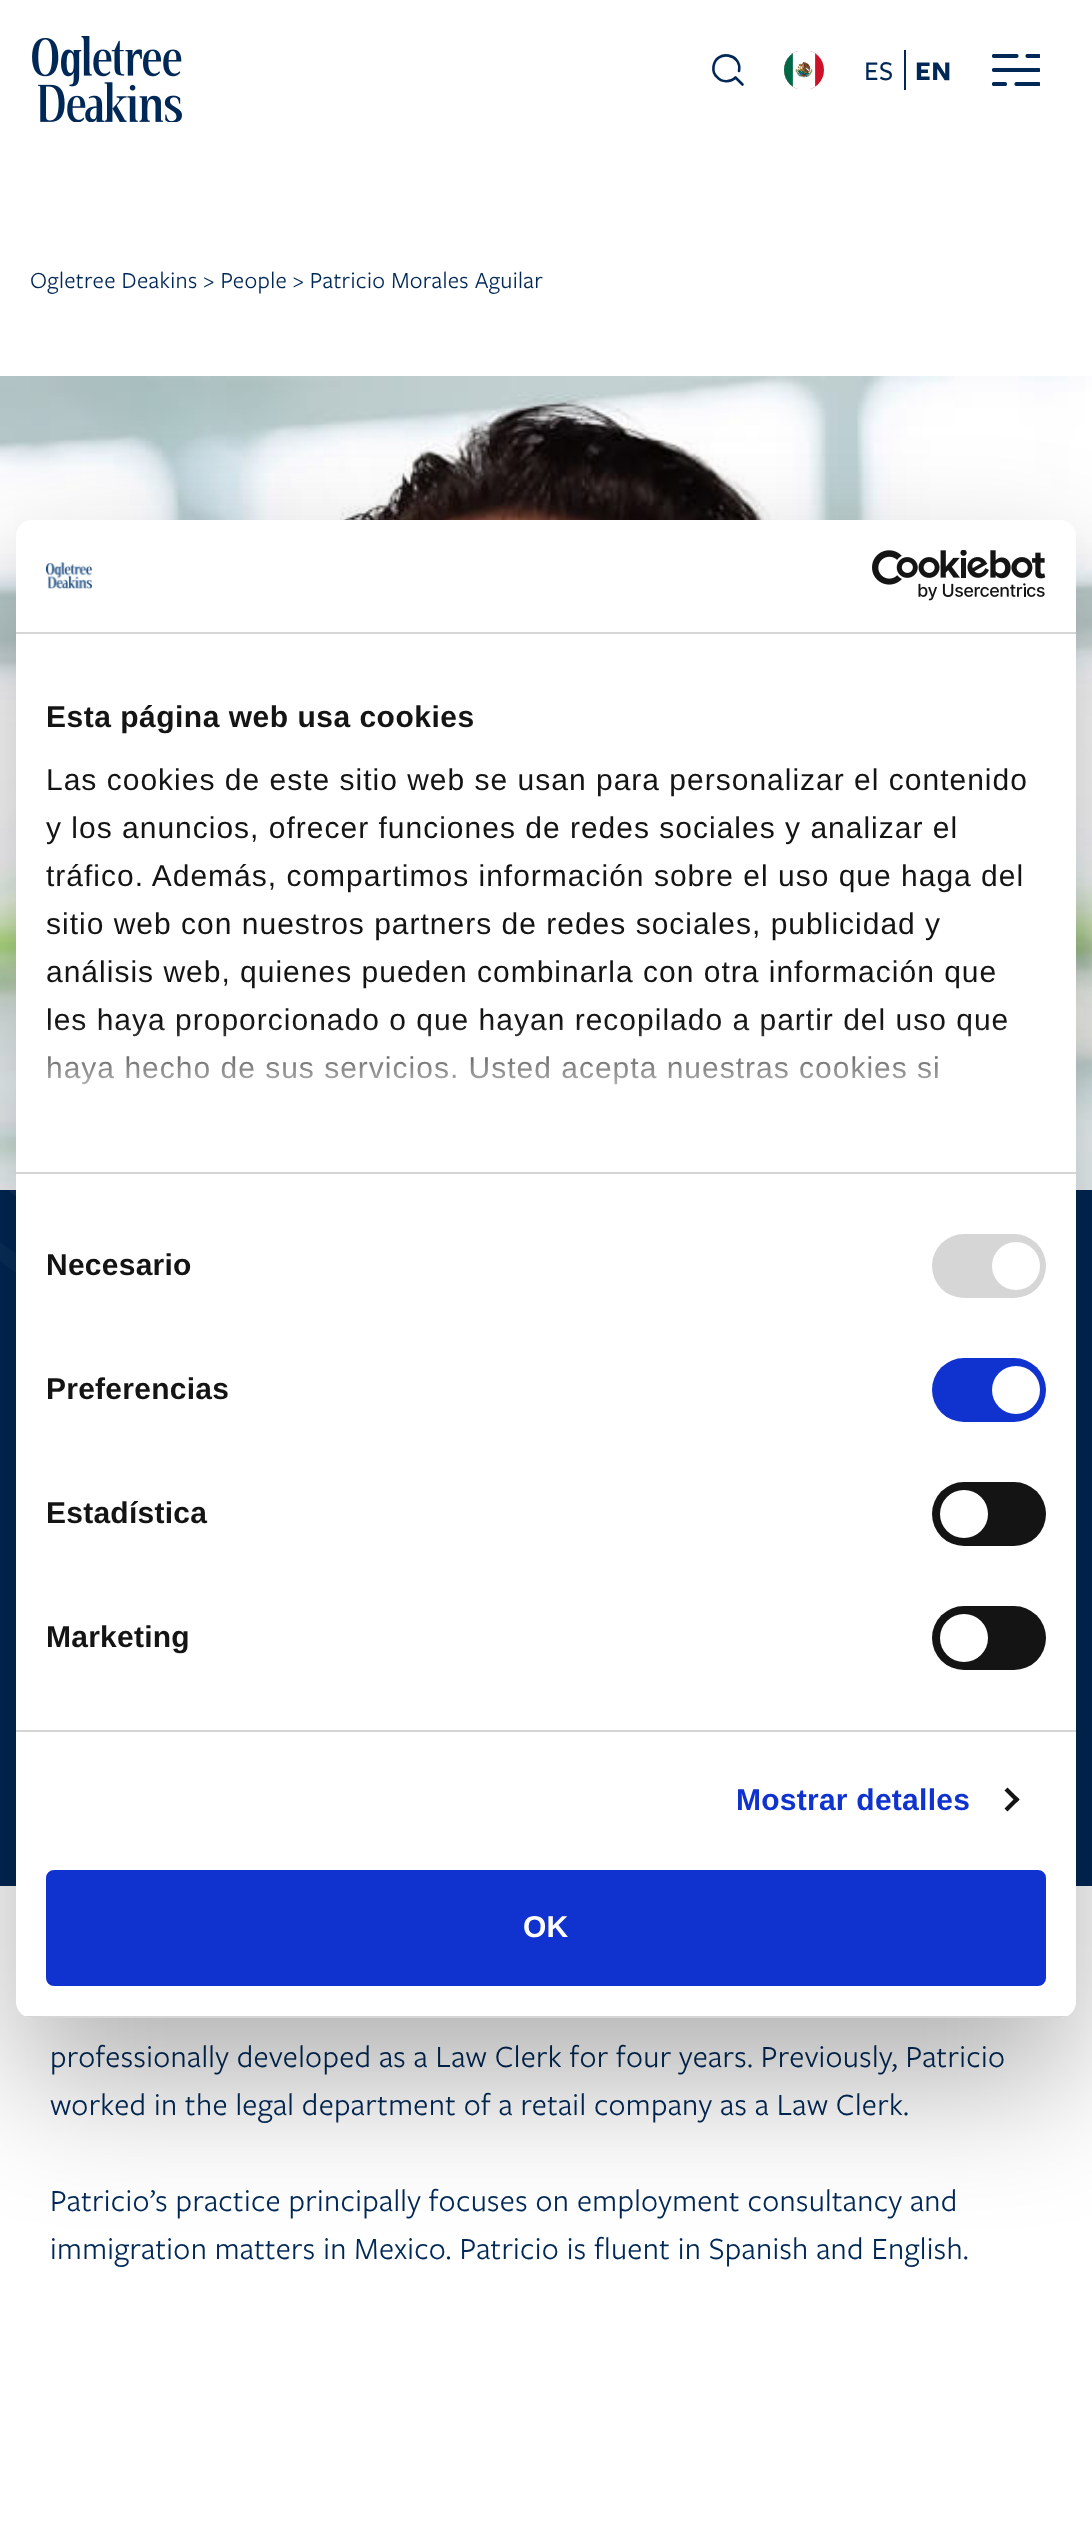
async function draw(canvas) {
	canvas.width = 1092;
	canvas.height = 2535;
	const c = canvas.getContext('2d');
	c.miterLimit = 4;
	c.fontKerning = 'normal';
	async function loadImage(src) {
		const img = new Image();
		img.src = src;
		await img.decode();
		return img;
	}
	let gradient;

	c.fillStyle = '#fff';
	c.fillRect(0, 0, 1092, 2535);
	c.drawImage(await loadImage('img1.png'), 32, 36, 150, 86);
	c.beginPath();
	c.moveTo(742.5, 84.5);
	c.lineTo(735.5, 77.5);
	c.bezierCurveTo(730.5, 82.5, 721.5, 82.5, 717, 77);
	c.bezierCurveTo(714, 74.5, 713, 70.5, 713.5, 66.5);
	c.bezierCurveTo(716, 49, 742.5, 53.5, 739, 71);
	c.strokeStyle = '#002856';
	c.lineWidth = 2.6;
	c.lineCap = 'round';
	c.lineJoin = 'round';
	c.stroke();
	c.drawImage(await loadImage('img2.png'), 784, 51, 40, 38);
	c.letterSpacing = '0.32px';
	c.font = '500 28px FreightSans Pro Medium';
	c.fillStyle = '#002856';
	c.fillText('ES', 864, 80);
	c.fillRect(904, 50, 2, 40);
	c.font = 'bold 28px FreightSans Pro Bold';
	c.fillText('EN', 915, 80);
	c.save();
	c.beginPath();
	c.rect(992, 54, 48, 32);
	c.clip();
	c.beginPath();
	c.moveTo(1038.5, 56);
	c.lineTo(1027.5, 56);
	c.moveTo(1016.5, 56);
	c.lineTo(994, 56);
	c.moveTo(1038.5, 70);
	c.lineTo(994, 70);
	c.moveTo(1038.5, 84);
	c.lineTo(1016.5, 84);
	c.moveTo(1005, 84);
	c.lineTo(994, 84);
	c.lineWidth = 4.2;
	c.setLineDash([110.6, 33.18]);
	c.stroke();
	c.restore();
	c.font = '24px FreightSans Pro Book';
	c.fillText('Ogletree Deakins > People > Patricio Morales Aguilar', 30, 288);
	c.drawImage(await loadImage('img3.png'), 0, 376, 1092, 814);
	c.fillRect(0, 1190, 1092, 696);
	c.drawImage(await loadImage('img4.png'), 0, 1190, 16, 83);
	c.font = '32px FreightSans Pro Book';
	for (const [text, x, y] of [
		['professionally developed as a Law Clerk for four years. Previously, Patricio', 50, 2067],
		['worked in the legal department of a retail company as a Law Clerk.', 50, 2115],
		['Patricio’s practice principally focuses on employment consultancy and', 50, 2211],
		['immigration matters in Mexico. Patricio is fluent in Spanish and English.', 50, 2259],
	]) {
		c.fillText(text, x, y);
	}
	c.fillStyle = '#0000004d';
	c.filter = 'blur(68px)';
	c.beginPath();
	c.roundRect(16, 584, 1060, 1498, 16);
	c.fill();
	c.filter = 'none';
	c.fillStyle = '#fff';
	c.beginPath();
	c.roundRect(16, 520, 1060, 1498, 16);
	c.fill();
	c.fillStyle = '#d6d6d6';
	c.fillRect(16, 632, 1060, 2);
	c.drawImage(await loadImage('img5.png'), 46, 562, 46, 28);
	c.drawImage(await loadImage('img6.png'), 872, 550, 174, 51);
	c.fillRect(16, 1172, 1060, 2);
	c.letterSpacing = '0.5px';
	c.font = 'bold 30px Liberation Sans';
	c.fillStyle = '#141414';
	c.fillText('Esta página web usa cookies', 46, 727);
	c.letterSpacing = '1px';
	c.font = '30px Liberation Sans';
	for (const [text, x, y] of [
		['Las cookies de este sitio web se usan para personalizar el contenido', 46, 790],
		['y los anuncios, ofrecer funciones de redes sociales y analizar el', 46, 838],
		['tráfico. Además, compartimos información sobre el uso que haga del', 46, 886],
		['sitio web con nuestros partners de redes sociales, publicidad y', 46, 934],
		['análisis web, quienes pueden combinarla con otra información que', 46, 982],
		['les haya proporcionado o que hayan recopilado a partir del uso que', 46, 1030],
		['haya hecho de sus servicios. Usted acepta nuestras cookies si', 46, 1078],
	]) {
		c.fillText(text, x, y);
	}
	gradient = c.createLinearGradient(533, 1172, 533, 1022);
	gradient.addColorStop(0, '#fff');
	gradient.addColorStop(0.5, '#ffffffcc');
	gradient.addColorStop(1, '#ffffff00');
	c.fillStyle = gradient;
	c.fillRect(48, 1024, 959, 61);
	c.fillStyle = '#d6d6d6';
	c.fillRect(16, 1730, 1060, 2);
	c.letterSpacing = '0.25px';
	c.font = 'bold 30px Liberation Sans';
	c.fillStyle = '#141414';
	c.fillText('Necesario', 46, 1275);
	c.fillStyle = '#d6d6d6';
	c.beginPath();
	c.roundRect(932, 1234, 114, 64, 32);
	c.fill();
	c.fillStyle = '#fff';
	c.beginPath();
	c.arc(1016, 1266, 24, 0, 2 * Math.PI);
	c.fill();
	c.fillStyle = '#141414';
	c.fillText('Preferencias', 46, 1399);
	c.fillStyle = '#1032cf';
	c.beginPath();
	c.roundRect(932, 1358, 114, 64, 32);
	c.fill();
	c.fillStyle = '#fff';
	c.beginPath();
	c.arc(1016, 1390, 24, 0, 2 * Math.PI);
	c.fill();
	c.fillStyle = '#141414';
	c.fillText('Estadística', 46, 1523);
	c.beginPath();
	c.roundRect(932, 1482, 114, 64, 32);
	c.fill();
	c.fillStyle = '#fff';
	c.beginPath();
	c.arc(964, 1514, 24, 0, 2 * Math.PI);
	c.fill();
	c.fillStyle = '#141414';
	c.fillText('Marketing', 46, 1647);
	c.beginPath();
	c.roundRect(932, 1606, 114, 64, 32);
	c.fill();
	c.fillStyle = '#fff';
	c.beginPath();
	c.arc(964, 1638, 24, 0, 2 * Math.PI);
	c.fill();
	c.fillStyle = '#1032cf';
	c.fillText('Mostrar detalles', 736, 1810);
	c.fillStyle = '#141414';
	c.beginPath();
	c.moveTo(1007.5, 1787.5);
	c.lineTo(1019.5, 1799.5);
	c.lineTo(1016.5, 1802.5);
	c.lineTo(1004.5, 1790.5);
	c.closePath();
	c.fill();
	c.beginPath();
	c.moveTo(1016.5, 1796.5);
	c.lineTo(1019.5, 1799.5);
	c.lineTo(1007.5, 1811.5);
	c.lineTo(1004.5, 1808.5);
	c.closePath();
	c.fill();
	c.save();
	c.beginPath();
	c.roundRect(16, 520, 1060, 1498, 16);
	c.clip();
	c.fillStyle = '#d6d6d6';
	c.fillRect(16, 2016, 1060, 2);
	c.restore();
	c.fillStyle = '#1032cf';
	c.beginPath();
	c.roundRect(48, 1872, 996, 112, 6);
	c.fill();
	c.strokeStyle = '#1032cf';
	c.lineWidth = 4;
	c.lineJoin = 'miter';
	c.stroke();
	c.fillStyle = '#fff';
	c.fillText('OK', 523, 1937);
}

draw(document.querySelector('canvas'));
